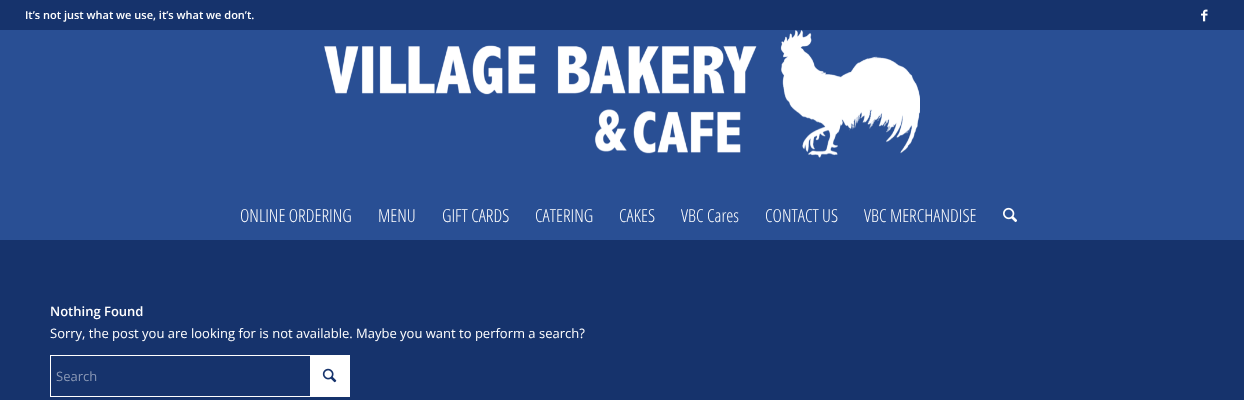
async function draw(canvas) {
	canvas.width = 1244;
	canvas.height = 400;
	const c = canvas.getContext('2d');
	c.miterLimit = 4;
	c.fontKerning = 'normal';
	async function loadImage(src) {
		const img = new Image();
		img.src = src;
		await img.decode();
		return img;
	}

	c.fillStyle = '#294f94';
	c.fillRect(0, 0, 1244, 400);
	c.fillStyle = '#16336c';
	c.fillRect(0, 0, 1244, 30);
	c.font = '600 11px Open Sans';
	c.fillStyle = '#fff';
	c.fillText('It’s not just what we use, it’s what we don’t.', 25, 19);
	c.drawImage(await loadImage('img1.png'), 1201, 9, 7, 13);
	c.drawImage(await loadImage('img2.png'), 324, 30, 596, 128);
	c.font = '300 18px Open Sans Condensed';
	for (const [text, x, y] of [
		['ONLINE ORDERING', 240, 222],
		['MENU', 378, 222],
		['GIFT CARDS', 442, 222],
		['CATERING', 535, 222],
		['CAKES', 619, 222],
		['VBC Cares', 681, 222],
		['CONTACT US', 765, 222],
		['VBC MERCHANDISE', 864, 222],
	]) {
		c.fillText(text, x, y);
	}
	c.drawImage(await loadImage('img3.png'), 1003, 207, 14, 16);
	c.fillStyle = '#16336c';
	c.fillRect(0, 240, 1244, 160);
	c.font = '600 13px Open Sans';
	c.fillStyle = '#fff';
	c.fillText('Nothing Found', 50, 316);
	c.font = '13px Open Sans';
	c.fillText('Sorry, the post you are looking for is not available. Maybe you want to perform a search?', 50, 338);
	c.strokeStyle = '#fff';
	c.strokeRect(50.5, 355.5, 299, 41);
	c.fillRect(310, 356, 39, 40);
	c.fillStyle = '#8b99b6';
	c.fillText('Search', 56, 381);
	c.drawImage(await loadImage('img4.png'), 322, 368, 15, 15);
}

draw(document.querySelector('canvas'));
